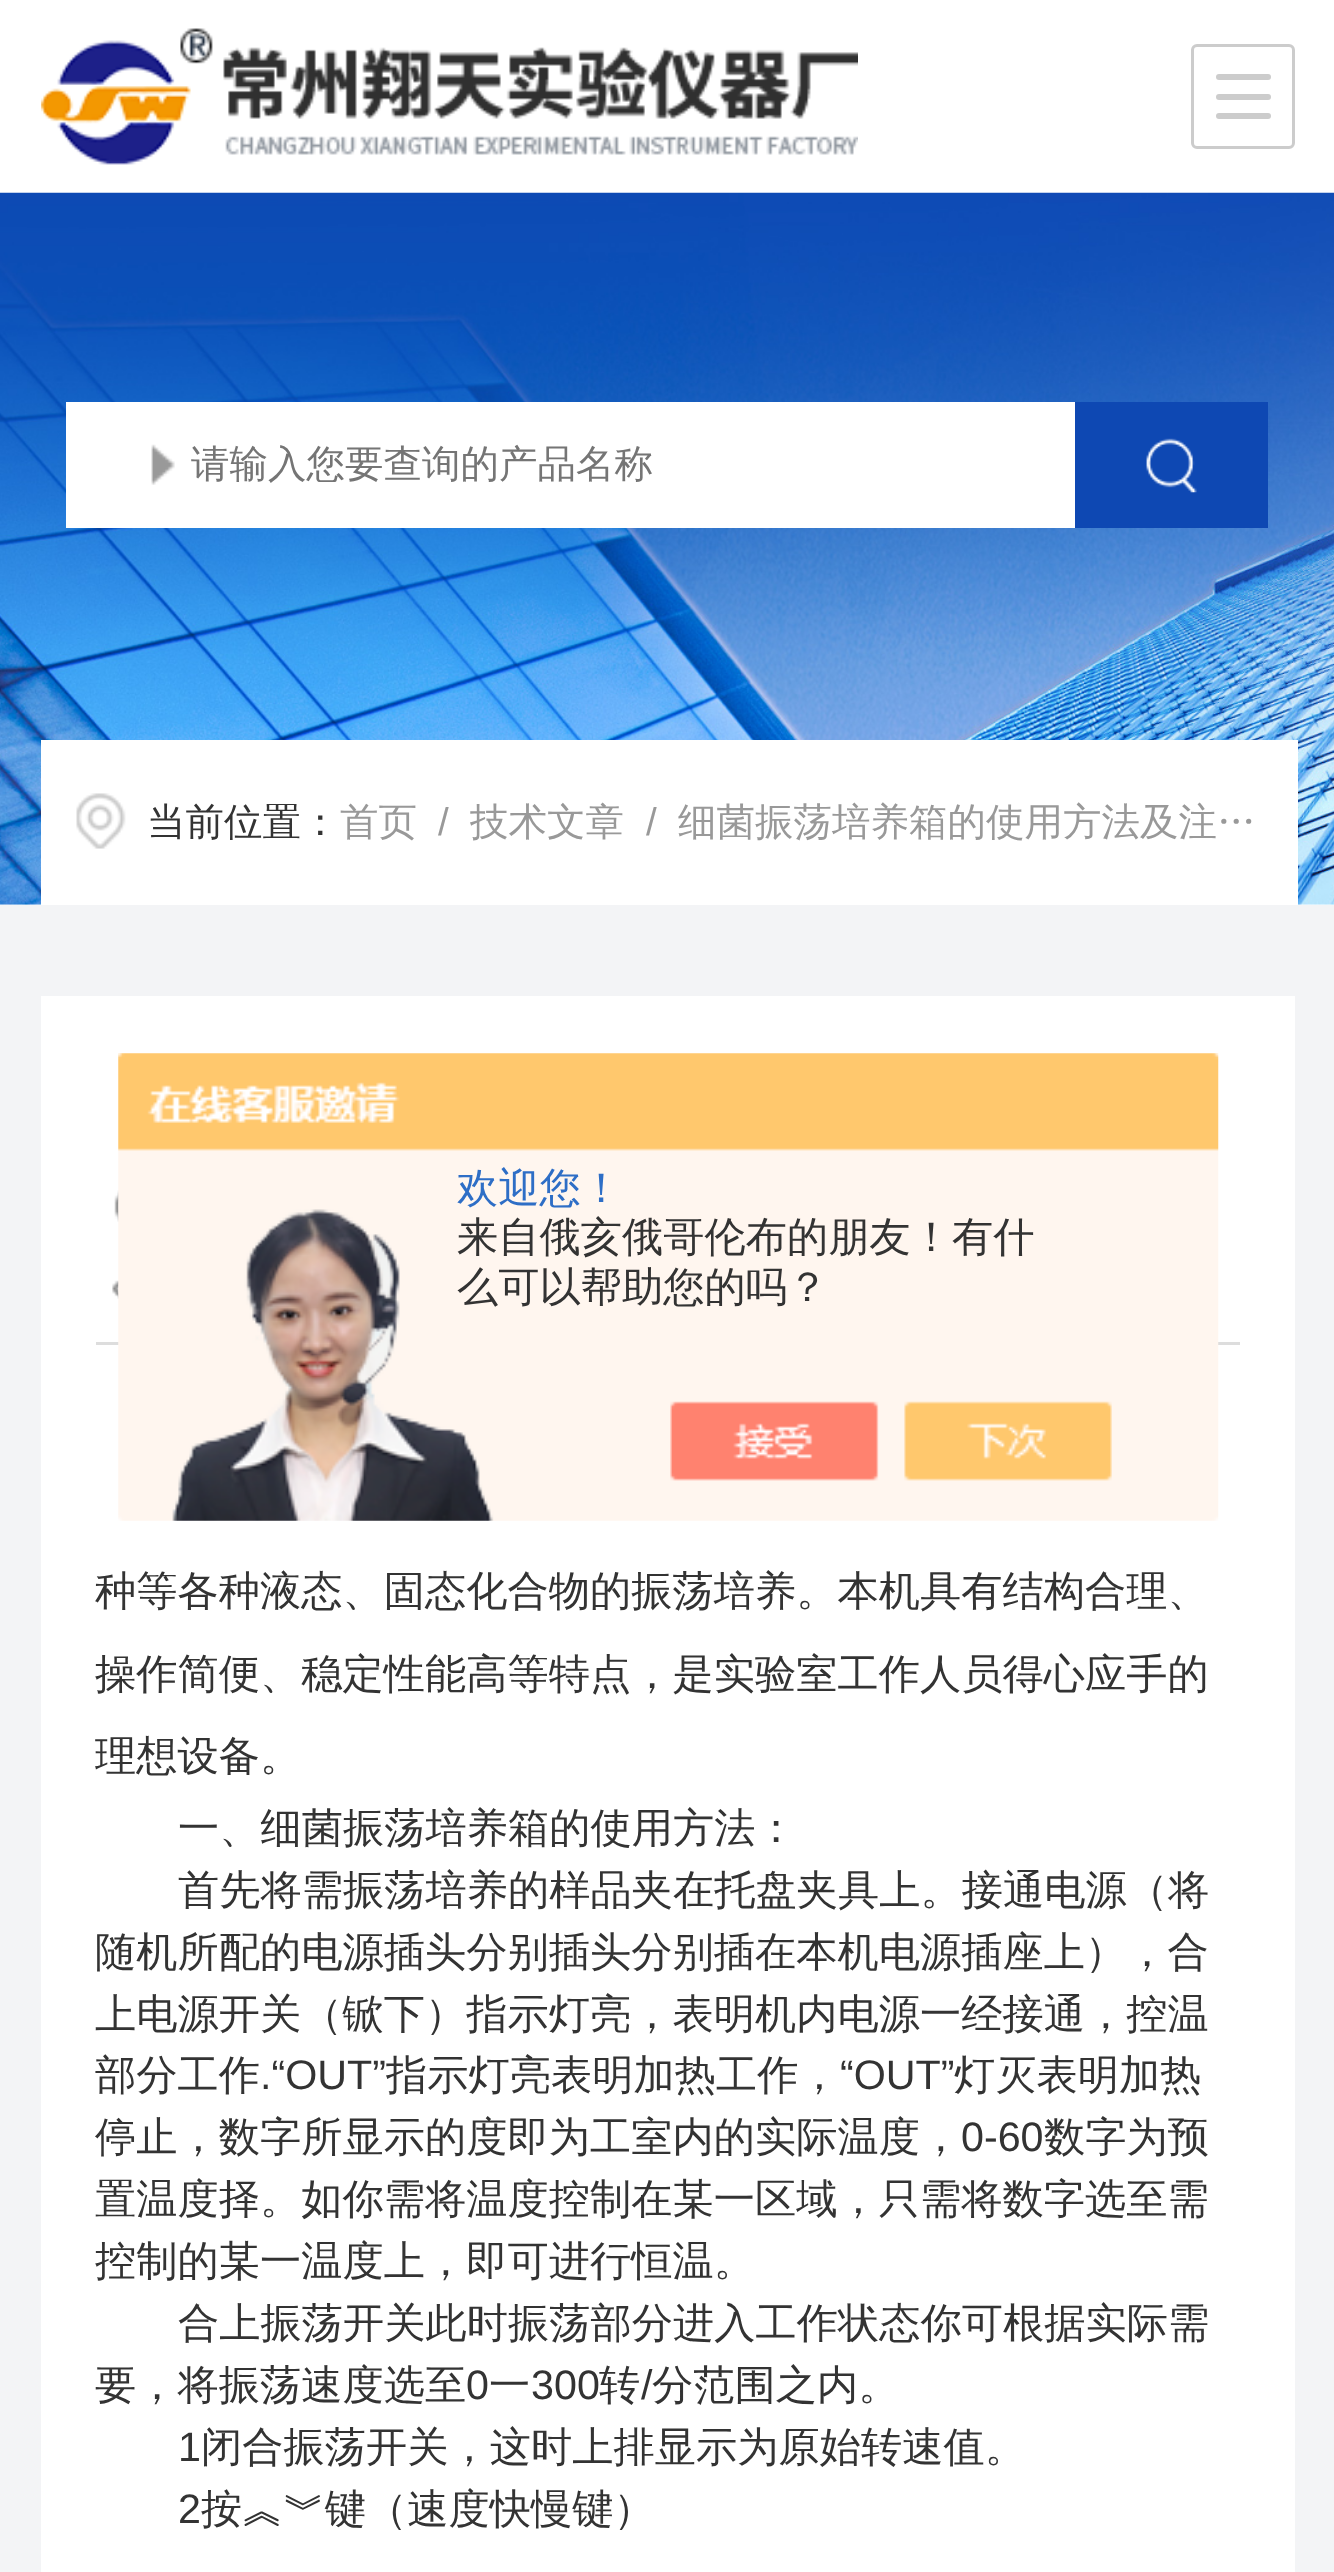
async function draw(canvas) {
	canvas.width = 1334;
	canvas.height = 2572;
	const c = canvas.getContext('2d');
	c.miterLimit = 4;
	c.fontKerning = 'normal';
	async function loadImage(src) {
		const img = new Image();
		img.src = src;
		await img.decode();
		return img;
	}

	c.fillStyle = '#fff';
	c.fillRect(0, 0, 1334, 2572);
	c.drawImage(await loadImage('img1.png'), 41, 28, 817, 137);
	c.beginPath();
	c.roundRect(1192.5, 45.5, 101, 102, 4.5);
	c.strokeStyle = '#ccc';
	c.lineWidth = 3;
	c.stroke();
	c.fillStyle = '#ccc';
	c.beginPath();
	c.roundRect(1216, 74, 55, 6, 3);
	c.fill();
	c.beginPath();
	c.roundRect(1216, 94, 55, 6, 3);
	c.fill();
	c.beginPath();
	c.roundRect(1216, 113, 55, 6, 3);
	c.fill();
	c.drawImage(await loadImage('img2.png'), 0, 192, 1334, 713);
	c.fillStyle = '#fff';
	c.fillRect(66, 402, 1009, 126);
	c.drawImage(await loadImage('img3.png'), 151, 444, 24, 41);
	c.font = '500 38.5px WenQuanYi Zen Hei';
	c.fillStyle = '#757575';
	c.fillText('请输入您要查询的产品名称', 191, 477);
	c.fillStyle = '#0e48b3';
	c.fillRect(1075, 402, 193, 126);
	c.drawImage(await loadImage('img4.png'), 1146, 438, 51, 55);
	c.fillStyle = '#fff';
	c.fillRect(41, 740, 1257, 165);
	c.drawImage(await loadImage('img5.png'), 76, 793, 50, 56);
	c.fillStyle = '#333';
	c.fillText('当前位置：', 147, 835);
	c.fillStyle = '#999';
	c.fillText('首页', 340, 835);
	c.font = '38.5px Liberation Sans';
	c.fillText('/', 438, 835);
	c.font = '500 38.5px WenQuanYi Zen Hei';
	c.fillText('技术文章', 470, 835);
	c.font = '38.5px Liberation Sans';
	c.fillText('/', 646, 835);
	c.font = '500 38.5px WenQuanYi Zen Hei';
	c.fillText('细菌振荡培养箱的使用方法及注…', 678, 835);
	for (const [x, y, w, h, color] of [
		[0, 905, 1334, 1667, '#f3f4f6'],
		[41, 996, 1254, 1576, '#fff'],
		[96, 1342, 1144, 3, '#ddd'],
	]) {
		c.fillStyle = color;
		c.fillRect(x, y, w, h);
	}
	c.drawImage(await loadImage('img7.png'), 114, 1190, 5, 32);
	c.drawImage(await loadImage('img8.png'), 112, 1280, 7, 19);
	c.drawImage(await loadImage('img6.png'), 118, 1053, 1101, 468);
	c.font = '500 41.25px WenQuanYi Zen Hei';
	c.fillStyle = '#2e6ec6';
	c.fillText('欢迎您！', 457, 1202);
	c.fillStyle = '#333';
	for (const [text, x, y] of [
		['来自俄亥俄哥伦布的朋友！有什', 457, 1251],
		['么可以帮助您的吗？', 457, 1301],
		['种等各种液态、固态化合物的振荡培养。本机具有结构合理、', 95, 1605],
		['操作简便、稳定性能高等特点，是实验室工作人员得心应手的', 95, 1688],
		['理想设备。', 95, 1770],
		['一、细菌振荡培养箱的使用方法：', 178, 1842],
		['首先将需振荡培养的样品夹在托盘夹具上。接通电源（将', 178, 1904],
		['随机所配的电源插头分别插头分别插在本机电源插座上），合', 95, 1966],
		['上电源开关（锨下）指示灯亮，表明机内电源一经接通，控温', 95, 2028],
		['部分工作', 95, 2089],
	]) {
		c.fillText(text, x, y);
	}
	c.font = '41.25px Liberation Sans';
	c.fillText('.“OUT”', 260, 2089);
	c.font = '500 41.25px WenQuanYi Zen Hei';
	c.fillText('指示灯亮表明加热工作，', 386, 2089);
	c.font = '41.25px Liberation Sans';
	c.fillText('“OUT”', 840, 2089);
	c.font = '500 41.25px WenQuanYi Zen Hei';
	c.fillText('灯灭表明加热', 954, 2089);
	c.fillText('停止，数字所显示的度即为工室内的实际温度，', 95, 2151);
	c.font = '41.25px Liberation Sans';
	c.fillText('0-60', 961, 2151);
	c.font = '500 41.25px WenQuanYi Zen Hei';
	for (const [text, x, y] of [
		['数字为预', 1044, 2151],
		['置温度择。如你需将温度控制在某一区域，只需将数字选至需', 95, 2213],
		['控制的某一温度上，即可进行恒温。', 95, 2275],
		['合上振荡开关此时振荡部分进入工作状态你可根据实际需', 178, 2337],
		['要，将振荡速度选至', 95, 2399],
	]) {
		c.fillText(text, x, y);
	}
	c.font = '41.25px Liberation Sans';
	c.fillText('0', 466, 2399);
	c.font = '500 41.25px WenQuanYi Zen Hei';
	c.fillText('一', 489, 2399);
	c.font = '41.25px Liberation Sans';
	c.fillText('300', 531, 2399);
	c.font = '500 41.25px WenQuanYi Zen Hei';
	c.fillText('转', 599, 2399);
	c.font = '41.25px Liberation Sans';
	c.fillText('/', 641, 2399);
	c.font = '500 41.25px WenQuanYi Zen Hei';
	c.fillText('分范围之内。', 652, 2399);
	c.font = '41.25px Liberation Sans';
	c.fillText('1', 178, 2461);
	c.font = '500 41.25px WenQuanYi Zen Hei';
	c.fillText('闭合振荡开关，这时上排显示为原始转速值。', 201, 2461);
	c.font = '41.25px Liberation Sans';
	c.fillText('2', 178, 2523);
	c.font = '500 41.25px WenQuanYi Zen Hei';
	c.fillText('按︽︾键（速度快慢键）', 201, 2523);
}

draw(document.querySelector('canvas'));
